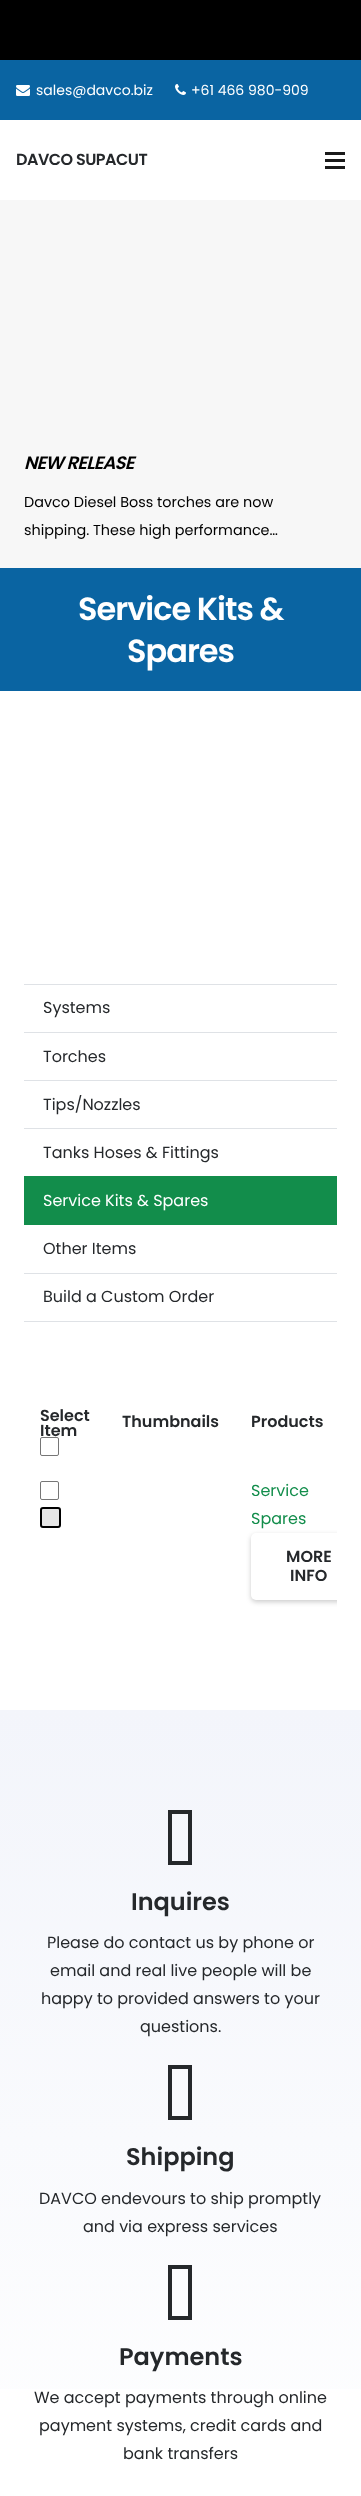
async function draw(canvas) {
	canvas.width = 361;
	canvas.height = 2496;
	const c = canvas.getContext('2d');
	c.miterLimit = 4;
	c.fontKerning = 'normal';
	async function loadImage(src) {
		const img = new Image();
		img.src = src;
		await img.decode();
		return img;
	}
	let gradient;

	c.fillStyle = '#fff';
	c.fillRect(0, 0, 361, 2496);
	c.fillStyle = '#000';
	c.fillRect(0, 0, 361, 60);
	c.fillStyle = '#0a64a2';
	c.fillRect(0, 60, 361, 60);
	c.drawImage(await loadImage('img1.png'), 16, 85, 14, 11);
	c.font = '14px Poppins';
	c.fillStyle = '#fff';
	c.fillText('sales@davco.biz', 36, 95);
	c.drawImage(await loadImage('img2.png'), 175, 84, 11, 11);
	c.fillText('+61 466 980-909', 191, 95);
	c.letterSpacing = '-0.5px';
	c.font = '600 16px Poppins';
	c.fillStyle = '#25282b';
	c.fillText('DAVCO SUPACUT', 16, 165);
	for (const [x, y, w, h, color] of [
		[325, 159, 20, 3, '#1a1a1a'],
		[325, 152, 20, 3, '#1a1a1a'],
		[325, 166, 20, 3, '#1a1a1a'],
		[0, 200, 361, 368, '#f7f7f7'],
	]) {
		c.fillStyle = color;
		c.fillRect(x, y, w, h);
	}
	c.letterSpacing = '-0.75px';
	c.font = 'italic 600 18px Poppins';
	c.fillStyle = '#000';
	c.fillText('NEW RELEASE', 24, 469);
	c.letterSpacing = '0px';
	c.font = '14.4px Poppins';
	c.fillText('Davco Diesel Boss torches are now', 24, 507);
	c.fillText('shipping. These high performance…', 24, 535);
	c.fillStyle = '#0a64a2';
	c.fillRect(0, 568, 361, 123);
	c.letterSpacing = '-1px';
	c.font = '600 32px Poppins';
	c.fillStyle = '#fff';
	c.fillText('Service Kits &', 78, 620);
	c.fillText('Spares', 127, 662);
	c.fillStyle = '#dfe2e6';
	c.fillRect(24, 1321, 313, 1);
	c.fillRect(24, 984, 313, 1);
	c.letterSpacing = '0px';
	c.font = '16px Poppins';
	c.fillStyle = '#25282b';
	c.fillText('Systems', 43, 1013);
	c.fillStyle = '#dfe2e6';
	c.fillRect(24, 1032, 313, 1);
	c.fillStyle = '#25282b';
	c.fillText('Torches', 43, 1062);
	c.fillStyle = '#dfe2e6';
	c.fillRect(24, 1080, 313, 1);
	c.fillStyle = '#25282b';
	c.fillText('Tips/Nozzles', 43, 1110);
	c.fillStyle = '#dfe2e6';
	c.fillRect(24, 1128, 313, 1);
	c.fillStyle = '#25282b';
	c.fillText('Tanks Hoses & Fittings', 43, 1158);
	c.fillStyle = '#128d4b';
	c.fillRect(24, 1176, 313, 49);
	c.fillStyle = '#fff';
	c.fillText('Service Kits & Spares', 43, 1206);
	c.fillStyle = '#25282b';
	c.fillText('Other Items', 43, 1254);
	c.fillStyle = '#dfe2e6';
	c.fillRect(24, 1273, 313, 1);
	c.fillStyle = '#25282b';
	c.fillText('Build a Custom Order', 43, 1302);
	c.font = '600 16px Poppins';
	c.fillText('Select', 40, 1421);
	c.fillText('Item', 40, 1436);
	c.beginPath();
	c.roundRect(40.5, 1437.5, 18, 18, 1.5);
	c.strokeStyle = '#767676';
	c.stroke();
	c.fillText('Thumbnails', 122, 1427);
	c.fillText('Products', 251, 1427);
	c.beginPath();
	c.roundRect(40.5, 1481.5, 18, 18, 1.5);
	c.stroke();
	c.fillStyle = '#e6e6e6';
	c.beginPath();
	c.roundRect(41, 1508, 19, 19, 2);
	c.fill();
	c.strokeStyle = '#000';
	c.lineWidth = 2;
	c.stroke();
	c.font = '16px Poppins';
	c.fillStyle = '#128d4b';
	c.fillText('Service', 251, 1496);
	c.fillText('Spares', 251, 1524);
	c.save();
	c.beginPath();
	c.rect(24, 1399, 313, 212);
	c.clip();
	c.fillStyle = '#00000033';
	c.filter = 'blur(2.5px)';
	c.beginPath();
	c.roundRect(251, 1535, 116, 67, 5);
	c.fill();
	c.filter = 'none';
	c.restore();
	c.fillStyle = '#fff';
	c.beginPath();
	c.roundRect(251, 1533, 86, 67, [5, 0, 0, 5]);
	c.fill();
	c.font = '600 16px Poppins';
	c.fillStyle = '#25282b';
	c.fillText('MORE', 286, 1562);
	c.fillText('INFO', 290, 1581);
	gradient = c.createLinearGradient(180, 1710, 181, 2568);
	gradient.addColorStop(0, '#f3f5fb');
	gradient.addColorStop(1, '#fff');
	c.fillStyle = gradient;
	c.fillRect(0, 1710, 361, 679);
	c.fillStyle = '#25282b';
	c.beginPath();
	c.moveTo(172, 1861);
	c.lineTo(172, 1814);
	c.lineTo(188, 1814);
	c.lineTo(188, 1861);
	c.closePath();
	c.moveTo(168, 1865);
	c.lineTo(192, 1865);
	c.lineTo(192, 1810);
	c.lineTo(168, 1810);
	c.closePath();
	c.fill();
	c.font = '600 24px Poppins';
	c.fillText('Inquires', 131, 1910);
	c.font = '16px Poppins';
	for (const [text, x, y] of [
		['Please do contact us by phone or', 47, 1948],
		['email and real live people will be', 50, 1976],
		['happy to provided answers to your', 41, 2004],
		['questions.', 140, 2032],
	]) {
		c.fillText(text, x, y);
	}
	c.beginPath();
	c.moveTo(172, 2116);
	c.lineTo(172, 2069);
	c.lineTo(188, 2069);
	c.lineTo(188, 2116);
	c.closePath();
	c.moveTo(168, 2120);
	c.lineTo(192, 2120);
	c.lineTo(192, 2065);
	c.lineTo(168, 2065);
	c.closePath();
	c.fill();
	c.font = '600 24px Poppins';
	c.fillText('Shipping', 126, 2165);
	c.font = '16px Poppins';
	c.fillText('DAVCO endevours to ship promptly', 39, 2204);
	c.fillText('and via express services', 83, 2232);
	c.beginPath();
	c.moveTo(172, 2316);
	c.lineTo(172, 2269);
	c.lineTo(188, 2269);
	c.lineTo(188, 2316);
	c.closePath();
	c.moveTo(168, 2320);
	c.lineTo(192, 2320);
	c.lineTo(192, 2265);
	c.lineTo(168, 2265);
	c.closePath();
	c.fill();
	c.font = '600 24px Poppins';
	c.fillText('Payments', 119, 2365);
	c.font = '16px Poppins';
	for (const [text, x, y] of [
		['We accept payments through online', 34, 2403],
		['payment systems, credit cards and', 39, 2431],
		['bank transfers', 123, 2459],
	]) {
		c.fillText(text, x, y);
	}
}

draw(document.querySelector('canvas'));
